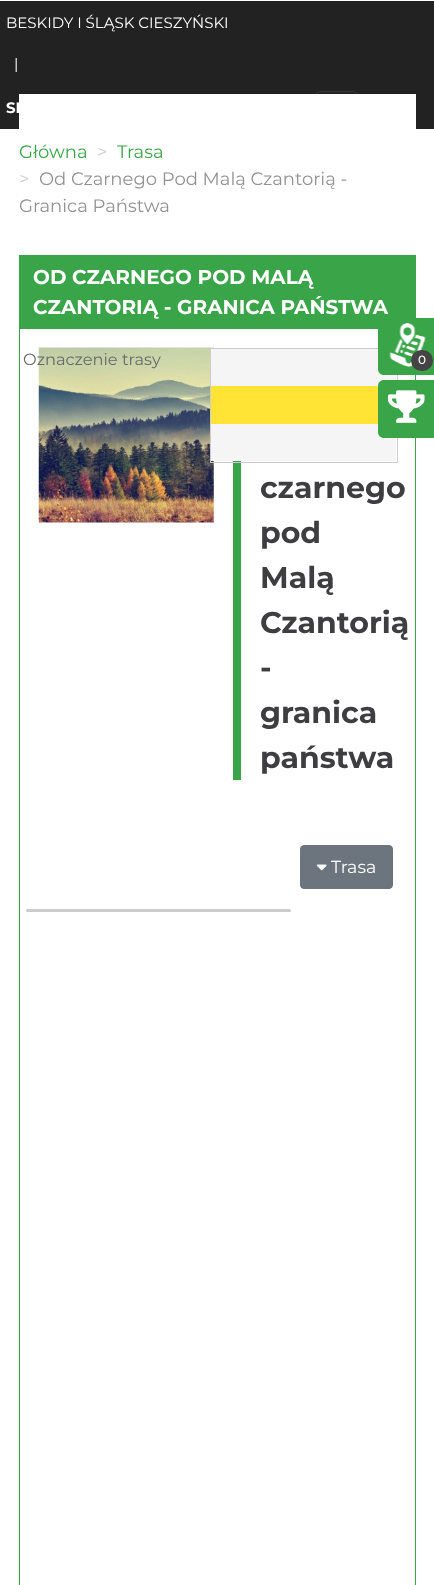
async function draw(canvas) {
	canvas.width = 434;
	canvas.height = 1585;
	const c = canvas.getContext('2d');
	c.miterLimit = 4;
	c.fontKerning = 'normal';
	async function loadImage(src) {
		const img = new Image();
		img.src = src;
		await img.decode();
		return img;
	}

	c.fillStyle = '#fff';
	c.fillRect(0, 0, 434, 1585);
	c.fillStyle = '#222';
	c.fillRect(0, 1, 434, 128);
	c.font = '15px Montserrat';
	c.fillStyle = '#fff';
	c.fillText('BESKIDY I ŚLĄSK CIESZYŃSKI', 6, 28);
	c.fillText('|', 14, 69);
	c.font = 'bold 15px Montserrat';
	c.fillText('SL', 6, 113);
	c.beginPath();
	c.roundRect(315.5, 91.5, 42, 32, 4.5);
	c.strokeStyle = '#383838';
	c.stroke();
	c.fillRect(19, 94, 397, 35);
	c.font = '18px Montserrat';
	c.fillStyle = '#3aa548';
	c.fillText('Główna', 19, 158);
	c.fillStyle = '#ccc';
	c.fillText('>', 97, 158);
	c.fillStyle = '#3aa548';
	c.fillText('Trasa', 117, 158);
	c.fillStyle = '#ccc';
	c.fillText('>', 19, 185);
	c.fillStyle = '#929292';
	c.fillText('Od Czarnego Pod Malą Czantorią -', 39, 185);
	c.fillText('Granica Państwa', 19, 212);
	c.strokeStyle = '#3aa548';
	c.strokeRect(19.5, 255.5, 396, 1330);
	c.fillStyle = '#3aa548';
	c.fillRect(20, 256, 395, 73);
	c.font = 'bold 20px Montserrat';
	c.fillStyle = '#fff';
	c.fillText('OD CZARNEGO POD MALĄ', 33, 284);
	c.fillText('CZANTORIĄ - GRANICA PAŃSTWA', 33, 314);
	c.fillStyle = '#3aa548';
	c.fillRect(233, 461, 8, 319);
	c.drawImage(await loadImage('img1.png'), 38, 347, 176, 176);
	c.font = '16.25px Montserrat';
	c.fillStyle = '#696969';
	c.fillText('Oznaczenie trasy', 23, 365);
	c.strokeStyle = '#ccc';
	c.strokeRect(210.5, 348.5, 187, 114);
	for (const [x, y, w, h, color] of [
		[211, 349, 185, 37, '#f5f5f5'],
		[211, 386, 167, 38, '#ffe435'],
		[211, 424, 185, 37, '#f5f5f5'],
	]) {
		c.fillStyle = color;
		c.fillRect(x, y, w, h);
	}
	c.font = 'bold 30px Montserrat';
	c.fillStyle = '#3e3d40';
	for (const [text, x, y] of [
		['czarnego', 260, 498],
		['pod', 260, 543],
		['Malą', 260, 588],
		['Czantorią', 260, 633],
		['-', 260, 678],
		['granica', 260, 723],
		['państwa', 260, 768],
	]) {
		c.fillText(text, x, y);
	}
	c.fillStyle = '#6c757d';
	c.beginPath();
	c.roundRect(300.5, 845.5, 92, 43, 3.5);
	c.fill();
	c.strokeStyle = '#6c757d';
	c.stroke();
	c.drawImage(await loadImage('img2.png'), 316, 864, 11, 7);
	c.font = '17.5px Montserrat';
	c.fillStyle = '#fff';
	c.fillText('Trasa', 331, 873);
	c.fillStyle = '#ccc';
	c.beginPath();
	c.roundRect(26, 909, 265, 3, 1.5);
	c.fill();
	c.fillStyle = '#3aa548';
	c.beginPath();
	c.moveTo(384, 318);
	c.lineTo(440, 318);
	c.lineTo(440, 375);
	c.lineTo(384, 375);
	c.bezierCurveTo(380.5, 375, 378, 372.5, 378, 369);
	c.lineTo(378, 324);
	c.bezierCurveTo(378, 320.5, 380.5, 318, 384, 318);
	c.closePath();
	c.fill();
	c.drawImage(await loadImage('img3.png'), 389, 323, 37, 44);
	c.fillStyle = '#444';
	c.beginPath();
	c.roundRect(411, 350, 22, 21, 10.5);
	c.fill();
	c.font = '500 12px Montserrat';
	c.fillStyle = '#fff';
	c.fillText('0', 418, 364);
	c.fillStyle = '#3aa548';
	c.beginPath();
	c.moveTo(384, 380);
	c.lineTo(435, 380);
	c.lineTo(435, 438);
	c.lineTo(384, 438);
	c.bezierCurveTo(380.5, 438, 378, 435.5, 378, 432);
	c.lineTo(378, 386);
	c.bezierCurveTo(378, 382.5, 380.5, 380, 384, 380);
	c.closePath();
	c.fill();
	c.drawImage(await loadImage('img4.png'), 387, 390, 38, 33);
}

draw(document.querySelector('canvas'));
